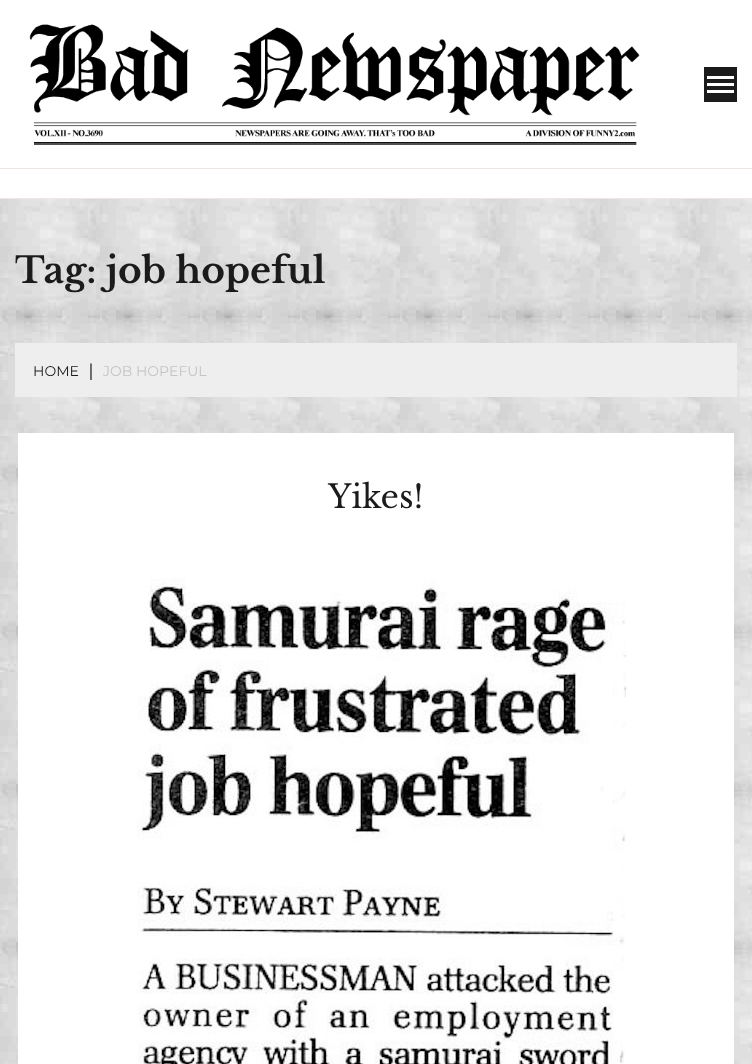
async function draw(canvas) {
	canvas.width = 752;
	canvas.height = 1064;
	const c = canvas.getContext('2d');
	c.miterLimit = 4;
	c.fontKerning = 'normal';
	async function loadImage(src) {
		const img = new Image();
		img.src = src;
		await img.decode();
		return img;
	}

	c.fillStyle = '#fff';
	c.fillRect(0, 0, 752, 1064);
	c.drawImage(await loadImage('img1.png'), 0, 199, 752, 865);
	c.drawImage(await loadImage('img2.png'), 29, 24, 611, 121);
	for (const [x, y, w, h, color] of [
		[704, 67, 33, 35, '#1b1b1b'],
		[707, 76, 27, 3, '#fff'],
		[707, 83, 27, 3, '#fff'],
		[707, 90, 27, 3, '#fff'],
		[0, 168, 752, 1, '#eee6e2'],
		[0, 198, 752, 1, '#eee6e2'],
	]) {
		c.fillStyle = color;
		c.fillRect(x, y, w, h);
	}
	c.font = 'bold 36px Libre Baskerville';
	c.fillStyle = '#1b1b1b';
	c.fillText('Tag: job hopeful', 15, 283);
	c.fillStyle = '#eee';
	c.fillRect(15, 343, 722, 54);
	c.font = '14px Montserrat';
	c.fillStyle = '#1b1b1b';
	c.fillText('HOME', 33, 376);
	c.font = 'bold 18px Liberation Serif';
	c.fillText('|', 89, 376);
	c.font = '14px Montserrat';
	c.fillStyle = '#c4c4c4';
	c.fillText('JOB HOPEFUL', 103, 376);
	c.fillStyle = '#fff';
	c.fillRect(18, 433, 716, 631);
	c.font = '32px Libre Baskerville';
	c.fillStyle = '#1b1b1b';
	c.fillText('Yikes!', 328, 508);
	c.drawImage(await loadImage('img3.png'), 137, 578, 489, 486);
}

draw(document.querySelector('canvas'));
